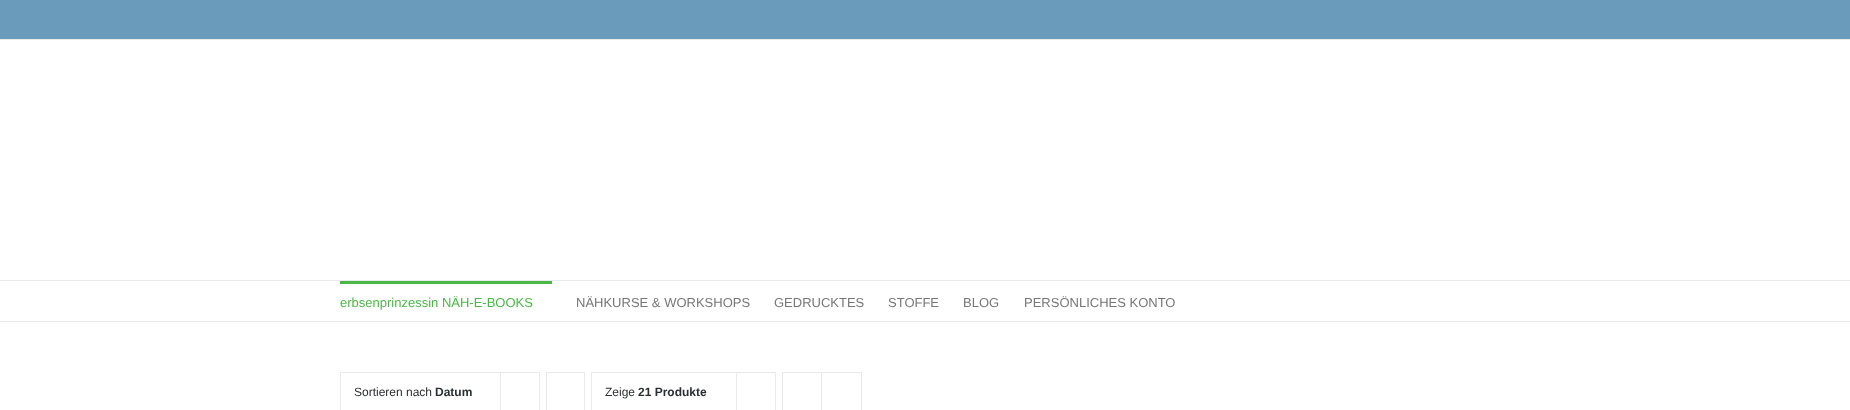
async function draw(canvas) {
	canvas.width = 1850;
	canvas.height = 410;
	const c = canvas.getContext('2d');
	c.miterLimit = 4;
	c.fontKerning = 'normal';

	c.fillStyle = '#fff';
	c.fillRect(0, 0, 1850, 410);
	for (const [x, y, w, h, color] of [
		[0, 0, 1850, 39, '#6a9bbb'],
		[0, 39, 1850, 1, '#eaeaea'],
		[0, 280, 1850, 1, '#eaeaea'],
		[0, 321, 1850, 1, '#eaeaea'],
		[340, 281, 212, 3, '#4ab848'],
	]) {
		c.fillStyle = color;
		c.fillRect(x, y, w, h);
	}
	c.font = '13px Liberation Sans';
	c.fillText('erbsenprinzessin NÄH-E-BOOKS', 340, 307);
	c.fillStyle = '#777';
	for (const [text, x, y] of [
		['NÄHKURSE & WORKSHOPS', 576, 307],
		['GEDRUCKTES', 774, 307],
		['STOFFE', 888, 307],
		['BLOG', 963, 307],
		['PERSÖNLICHES KONTO', 1024, 307],
	]) {
		c.fillText(text, x, y);
	}
	c.strokeStyle = '#eaeaea';
	c.strokeRect(340.5, 372.5, 199, 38);
	c.font = '12px Liberation Sans';
	c.fillStyle = '#2b2e32';
	c.fillText('Sortieren nach', 354, 396);
	c.font = 'bold 12px Liberation Sans';
	c.fillText('Datum', 435, 396);
	c.fillStyle = '#eaeaea';
	c.fillRect(500, 372, 1, 38);
	c.strokeRect(546.5, 372.5, 38, 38);
	c.strokeRect(591.5, 372.5, 184, 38);
	c.font = '12px Liberation Sans';
	c.fillStyle = '#2b2e32';
	c.fillText('Zeige', 605, 396);
	c.font = 'bold 12px Liberation Sans';
	c.fillText('21 Produkte', 638, 396);
	c.fillStyle = '#eaeaea';
	c.fillRect(736, 372, 1, 38);
	c.strokeRect(782.5, 372.5, 79, 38);
	c.fillRect(821, 373, 1, 37);
}

draw(document.querySelector('canvas'));
